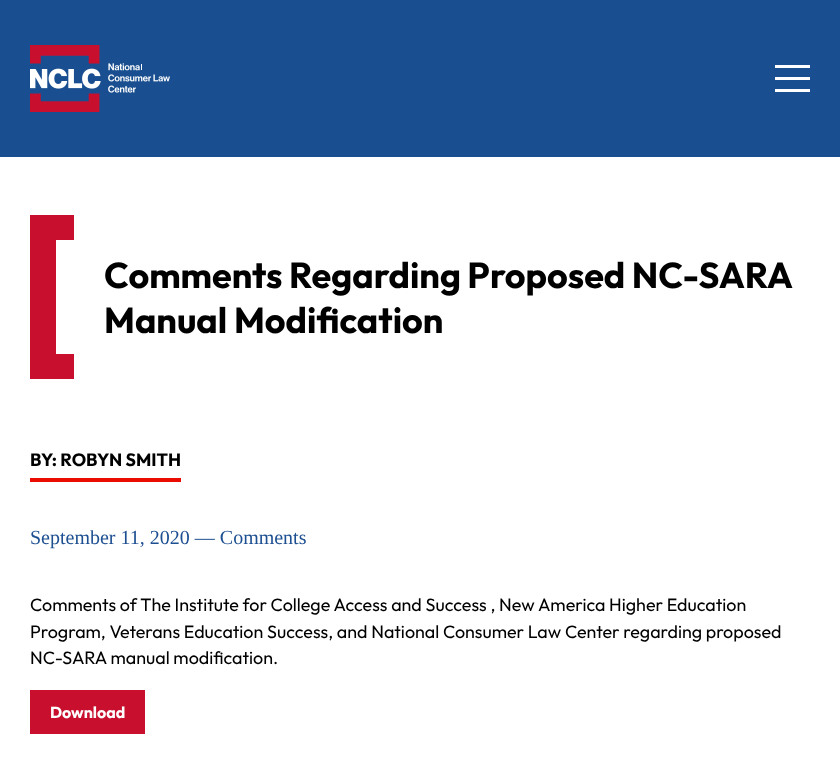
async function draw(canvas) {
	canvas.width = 840;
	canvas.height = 770;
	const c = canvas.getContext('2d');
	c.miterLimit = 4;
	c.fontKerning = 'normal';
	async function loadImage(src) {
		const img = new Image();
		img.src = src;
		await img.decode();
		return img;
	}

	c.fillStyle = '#fff';
	c.fillRect(0, 0, 840, 770);
	c.fillStyle = '#194f90';
	c.fillRect(0, 0, 840, 157);
	c.drawImage(await loadImage('img1.png'), 30, 45, 140, 67);
	for (const [x, y, w, h, color] of [
		[775, 77, 35, 3, '#fff'],
		[775, 65, 35, 3, '#fff'],
		[775, 89, 35, 3, '#fff'],
	]) {
		c.fillStyle = color;
		c.fillRect(x, y, w, h);
	}
	c.fillStyle = '#c8102e';
	c.beginPath();
	c.moveTo(30, 215);
	c.lineTo(74, 215);
	c.lineTo(74, 240);
	c.lineTo(56, 240);
	c.lineTo(56, 354);
	c.lineTo(74, 354);
	c.lineTo(74, 379);
	c.lineTo(30, 379);
	c.closePath();
	c.fill();
	c.wordSpacing = '-0.5px';
	c.font = 'bold 36px Outfit';
	c.fillStyle = '#000';
	c.fillText('Comments Regarding Proposed NC-SARA', 104, 288);
	c.wordSpacing = '0px';
	c.fillText('Manual Modification', 104, 333);
	c.font = 'bold 17.9px Outfit';
	c.fillText('BY: ROBYN SMITH', 30, 466);
	c.fillStyle = '#eb0c00';
	c.fillRect(30, 478, 151, 4);
	c.font = '20px Liberation Serif';
	c.fillStyle = '#1d4f91';
	c.fillText('September 11, 2020 — Comments', 30, 544);
	c.font = '17.9px Outfit';
	c.fillStyle = '#000';
	for (const [text, x, y] of [
		['Comments of The Institute for College Access and Success , New America Higher Education', 30, 611],
		['Program, Veterans Education Success, and National Consumer Law Center regarding proposed', 30, 638],
		['NC-SARA manual modification.', 30, 664],
	]) {
		c.fillText(text, x, y);
	}
	c.fillStyle = '#c8102e';
	c.fillRect(30, 690, 115, 44);
	c.font = 'bold 16px Outfit';
	c.fillStyle = '#fff';
	c.fillText('Download', 50, 718);
}

draw(document.querySelector('canvas'));
